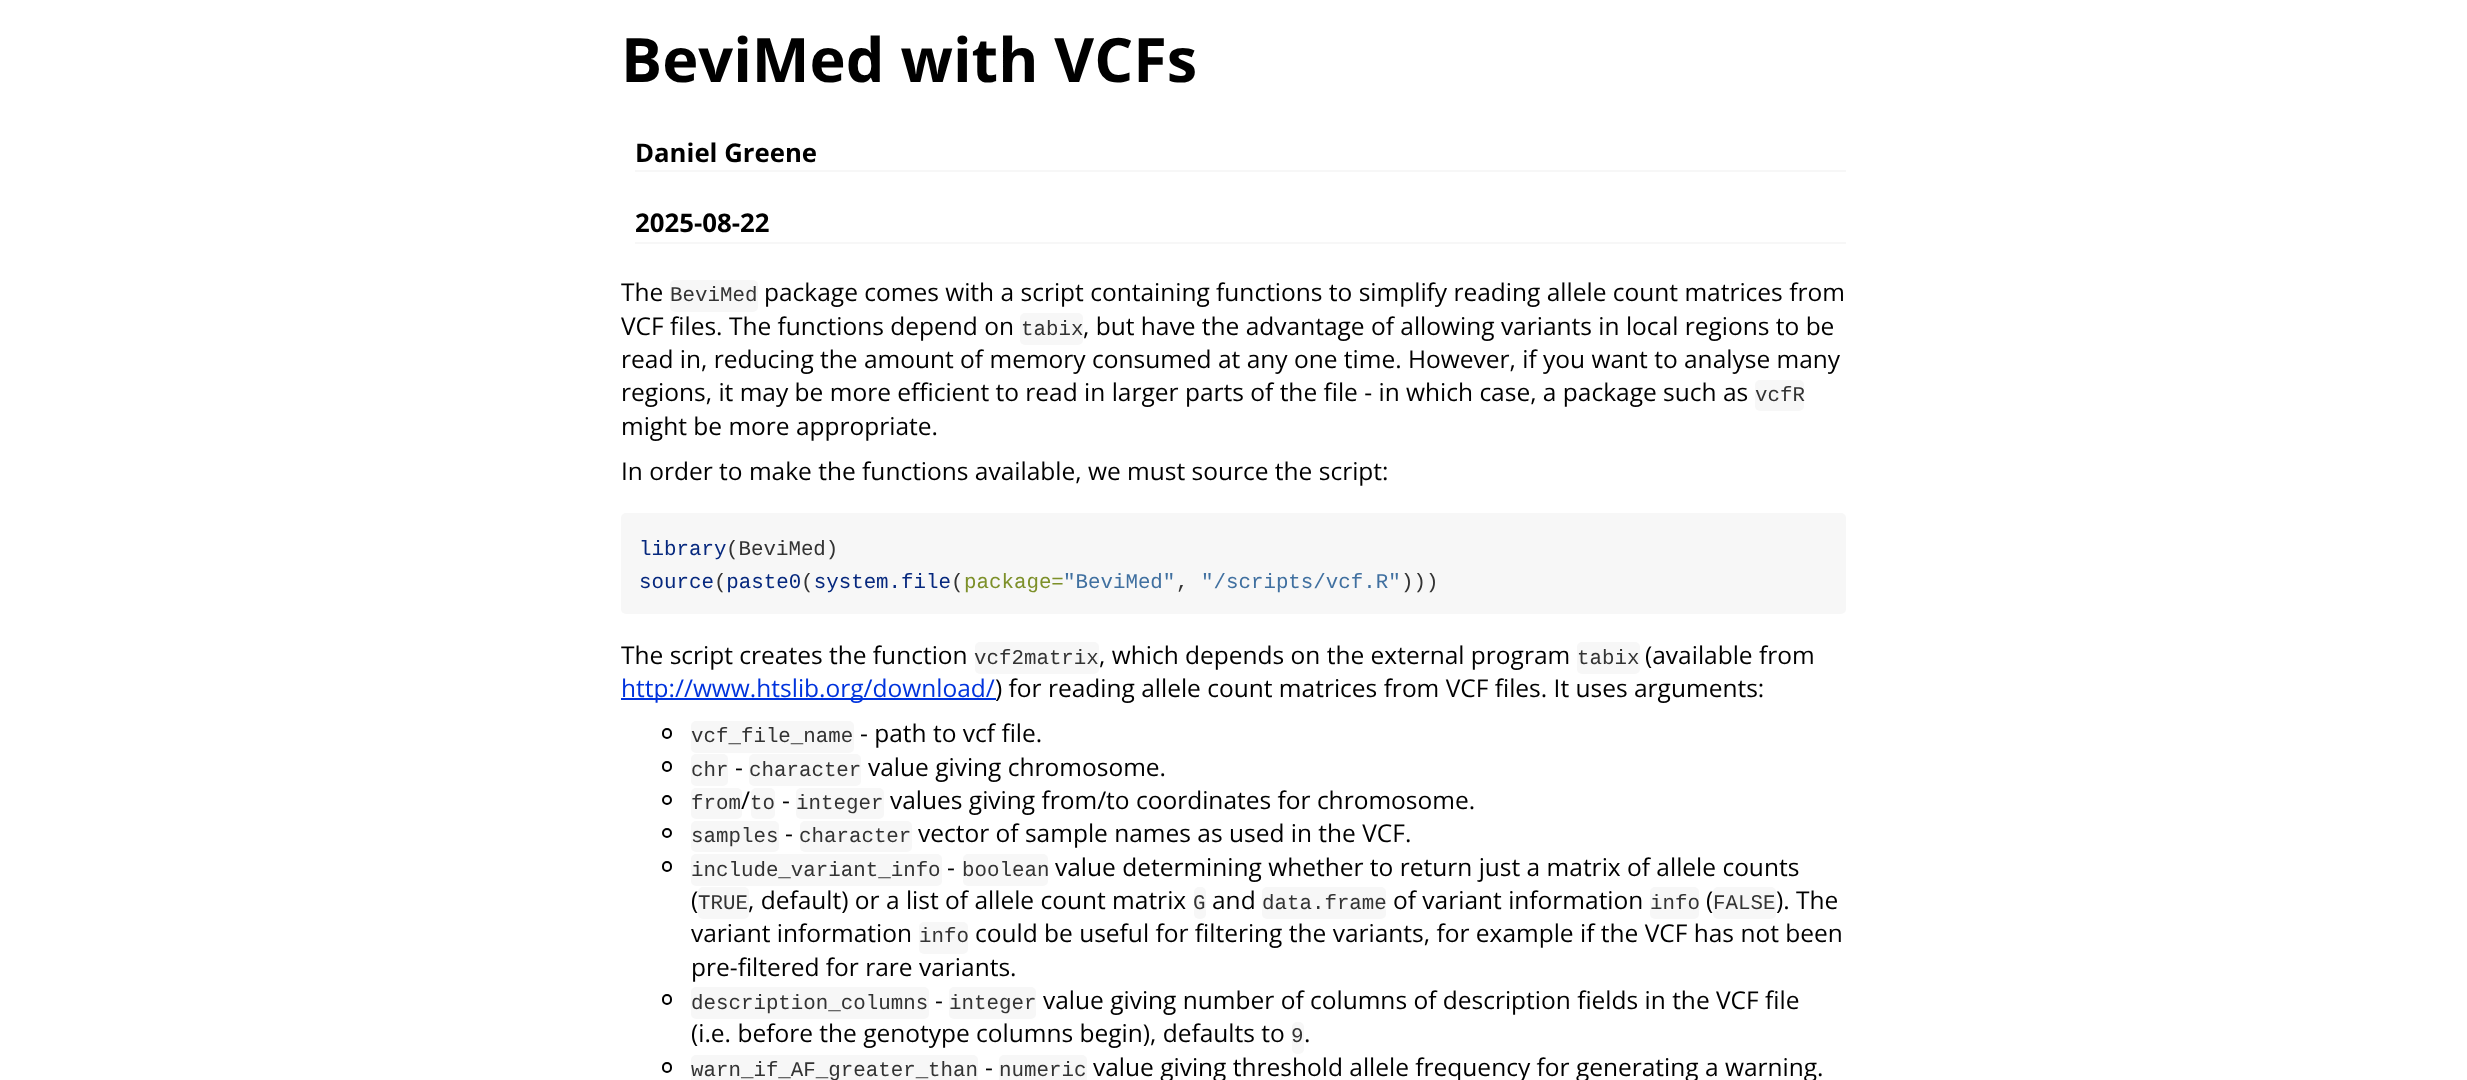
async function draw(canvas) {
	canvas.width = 2467;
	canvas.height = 1080;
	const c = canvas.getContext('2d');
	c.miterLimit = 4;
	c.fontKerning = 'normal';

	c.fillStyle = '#fff';
	c.fillRect(0, 0, 2467, 1080);
	c.font = 'bold 61.25px Open Sans';
	c.fillStyle = '#000';
	c.fillText('BeviMed with VCFs', 621, 82);
	c.fillStyle = '#f7f7f7';
	c.fillRect(635, 170, 1211, 2);
	c.font = 'bold 25.75px Open Sans';
	c.fillStyle = '#000';
	c.fillText('Daniel Greene', 635, 162);
	c.fillStyle = '#f7f7f7';
	c.fillRect(635, 242, 1211, 2);
	c.fillStyle = '#000';
	c.fillText('2025-08-22', 635, 232);
	c.font = '24.5px Open Sans';
	c.fillText('The', 621, 301);
	c.fillStyle = '#f7f7f7';
	c.beginPath();
	c.roundRect(670, 280, 88, 32, 5);
	c.fill();
	c.font = '20.8px Liberation Mono';
	c.fillStyle = '#333';
	c.fillText('BeviMed', 670, 301);
	c.font = '24.5px Open Sans';
	c.fillStyle = '#000';
	c.fillText('package comes with a script containing functions to simplify reading allele count matrices from', 764, 301);
	c.fillText('VCF files. The functions depend on', 621, 335);
	c.fillStyle = '#f7f7f7';
	c.beginPath();
	c.roundRect(1020, 313, 63, 32, 5);
	c.fill();
	c.font = '20.8px Liberation Mono';
	c.fillStyle = '#333';
	c.fillText('tabix', 1021, 335);
	c.font = '24.5px Open Sans';
	c.fillStyle = '#000';
	for (const [text, x, y] of [
		[', but have the advantage of allowing variants in local regions to be', 1083, 335],
		['read in, reducing the amount of memory consumed at any one time. However, if you want to analyse many', 621, 368],
		['regions, it may be more efficient to read in larger parts of the file - in which case, a package such as', 621, 401],
	]) {
		c.fillText(text, x, y);
	}
	c.fillStyle = '#f7f7f7';
	c.beginPath();
	c.roundRect(1755, 380, 49, 31, 5);
	c.fill();
	c.font = '20.8px Liberation Mono';
	c.fillStyle = '#333';
	c.fillText('vcfR', 1755, 401);
	c.font = '24.5px Open Sans';
	c.fillStyle = '#000';
	c.fillText('might be more appropriate.', 621, 435);
	c.fillText('In order to make the functions available, we must source the script:', 621, 480);
	c.fillStyle = '#f7f7f7';
	c.beginPath();
	c.roundRect(621, 513, 1225, 101, 5);
	c.fill();
	c.font = '20.8px Liberation Mono';
	c.fillStyle = '#06287e';
	c.fillText('library', 639, 555);
	c.fillStyle = '#333';
	c.fillText('(BeviMed)', 726, 555);
	c.fillStyle = '#06287e';
	c.fillText('source paste0 system.file', 639, 588);
	c.fillStyle = '#333';
	for (const [text, x, y] of [
		['(', 714, 588],
		['(', 801, 588],
		['(', 951, 588],
	]) {
		c.fillText(text, x, y);
	}
	c.fillStyle = '#7d9029';
	c.fillText('package=', 964, 588);
	c.fillStyle = '#4070a0';
	c.fillText('"BeviMed"', 1063, 588);
	c.fillStyle = '#333';
	c.fillText(',', 1176, 588);
	c.fillStyle = '#4070a0';
	c.fillText('"/scripts/vcf.R"', 1201, 588);
	c.fillStyle = '#333';
	c.fillText(')))', 1401, 588);
	c.font = '24.5px Open Sans';
	c.fillStyle = '#000';
	c.fillText('The script creates the function', 621, 664);
	c.fillStyle = '#f7f7f7';
	c.beginPath();
	c.roundRect(975, 642, 124, 32, 5);
	c.fill();
	c.font = '20.8px Liberation Mono';
	c.fillStyle = '#333';
	c.fillText('vcf2matrix', 974, 664);
	c.font = '24.5px Open Sans';
	c.fillStyle = '#000';
	c.fillText(', which depends on the external program', 1099, 664);
	c.fillStyle = '#f7f7f7';
	c.beginPath();
	c.roundRect(1577, 642, 63, 32, 5);
	c.fill();
	c.font = '20.8px Liberation Mono';
	c.fillStyle = '#333';
	c.fillText('tabix', 1577, 664);
	c.font = '24.5px Open Sans';
	c.fillStyle = '#000';
	c.fillText('(available from', 1645, 664);
	c.fillStyle = '#03d';
	c.fillRect(621, 698, 375, 2);
	c.fillText('http://www.htslib.org/download/', 621, 697);
	c.fillStyle = '#000';
	c.fillText(') for reading allele count matrices from VCF files. It uses arguments:', 995, 697);
	c.beginPath();
	c.roundRect(663, 729, 8, 9, 4);
	c.strokeStyle = '#000';
	c.lineWidth = 2;
	c.stroke();
	c.fillStyle = '#f7f7f7';
	c.beginPath();
	c.roundRect(691, 721, 163, 32, 5);
	c.fill();
	c.font = '20.8px Liberation Mono';
	c.fillStyle = '#333';
	c.fillText('vcf_file_name', 691, 742);
	c.font = '24.5px Open Sans';
	c.fillStyle = '#000';
	c.fillText('- path to vcf file.', 860, 742);
	c.beginPath();
	c.roundRect(663, 762, 8, 9, 4);
	c.stroke();
	c.fillStyle = '#f7f7f7';
	c.beginPath();
	c.roundRect(691, 754, 37, 32, 5);
	c.fill();
	c.font = '20.8px Liberation Mono';
	c.fillStyle = '#333';
	c.fillText('chr', 691, 776);
	c.font = '24.5px Open Sans';
	c.fillStyle = '#000';
	c.fillText('-', 735, 776);
	c.fillStyle = '#f7f7f7';
	c.beginPath();
	c.roundRect(749, 754, 112, 32, 5);
	c.fill();
	c.font = '20.8px Liberation Mono';
	c.fillStyle = '#333';
	c.fillText('character', 749, 776);
	c.font = '24.5px Open Sans';
	c.fillStyle = '#000';
	c.fillText('value giving chromosome.', 868, 776);
	c.beginPath();
	c.arc(667, 800, 4, 0, 2 * Math.PI);
	c.stroke();
	c.fillStyle = '#f7f7f7';
	c.beginPath();
	c.roundRect(691, 788, 51, 31, 5);
	c.fill();
	c.font = '20.8px Liberation Mono';
	c.fillStyle = '#333';
	c.fillText('from', 691, 809);
	c.font = '24.5px Open Sans';
	c.fillStyle = '#000';
	c.fillText('/', 741, 809);
	c.fillStyle = '#f7f7f7';
	c.beginPath();
	c.roundRect(751, 788, 24, 31, 5);
	c.fill();
	c.font = '20.8px Liberation Mono';
	c.fillStyle = '#333';
	c.fillText('to', 750, 809);
	c.font = '24.5px Open Sans';
	c.fillStyle = '#000';
	c.fillText('-', 782, 809);
	c.fillStyle = '#f7f7f7';
	c.beginPath();
	c.roundRect(796, 788, 88, 31, 5);
	c.fill();
	c.font = '20.8px Liberation Mono';
	c.fillStyle = '#333';
	c.fillText('integer', 796, 809);
	c.font = '24.5px Open Sans';
	c.fillStyle = '#000';
	c.fillText('values giving from/to coordinates for chromosome.', 890, 809);
	c.beginPath();
	c.arc(667, 833, 4, 0, 2 * Math.PI);
	c.stroke();
	c.fillStyle = '#f7f7f7';
	c.beginPath();
	c.roundRect(691, 821, 88, 31, 5);
	c.fill();
	c.font = '20.8px Liberation Mono';
	c.fillStyle = '#333';
	c.fillText('samples', 691, 842);
	c.font = '24.5px Open Sans';
	c.fillStyle = '#000';
	c.fillText('-', 785, 842);
	c.fillStyle = '#f7f7f7';
	c.beginPath();
	c.roundRect(800, 821, 112, 31, 5);
	c.fill();
	c.font = '20.8px Liberation Mono';
	c.fillStyle = '#333';
	c.fillText('character', 799, 842);
	c.font = '24.5px Open Sans';
	c.fillStyle = '#000';
	c.fillText('vector of sample names as used in the VCF.', 918, 842);
	c.beginPath();
	c.roundRect(663, 862, 8, 9, 4);
	c.stroke();
	c.fillStyle = '#f7f7f7';
	c.beginPath();
	c.roundRect(691, 854, 251, 32, 5);
	c.fill();
	c.font = '20.8px Liberation Mono';
	c.fillStyle = '#333';
	c.fillText('include_variant_info', 691, 876);
	c.font = '24.5px Open Sans';
	c.fillStyle = '#000';
	c.fillText('-', 947, 876);
	c.fillStyle = '#f7f7f7';
	c.beginPath();
	c.roundRect(963, 854, 85, 32, 5);
	c.fill();
	c.font = '20.8px Liberation Mono';
	c.fillStyle = '#333';
	c.fillText('boolean', 962, 876);
	c.font = '24.5px Open Sans';
	c.fillStyle = '#000';
	c.fillText('value determining whether to return just a matrix of allele counts', 1055, 876);
	c.fillText('(', 691, 909);
	c.fillStyle = '#f7f7f7';
	c.beginPath();
	c.roundRect(698, 887, 51, 32, 5);
	c.fill();
	c.font = '20.8px Liberation Mono';
	c.fillStyle = '#333';
	c.fillText('TRUE', 698, 909);
	c.font = '24.5px Open Sans';
	c.fillStyle = '#000';
	c.fillText(', default) or a list of allele count matrix', 748, 909);
	c.fillStyle = '#f7f7f7';
	c.beginPath();
	c.roundRect(1194, 887, 12, 32, 5);
	c.fill();
	c.font = '20.8px Liberation Mono';
	c.fillStyle = '#333';
	c.fillText('G', 1193, 909);
	c.font = '24.5px Open Sans';
	c.fillStyle = '#000';
	c.fillText('and', 1212, 909);
	c.fillStyle = '#f7f7f7';
	c.beginPath();
	c.roundRect(1262, 887, 124, 32, 5);
	c.fill();
	c.font = '20.8px Liberation Mono';
	c.fillStyle = '#333';
	c.fillText('data.frame', 1262, 909);
	c.font = '24.5px Open Sans';
	c.fillStyle = '#000';
	c.fillText('of variant information', 1393, 909);
	c.fillStyle = '#f7f7f7';
	c.beginPath();
	c.roundRect(1650, 887, 49, 32, 5);
	c.fill();
	c.font = '20.8px Liberation Mono';
	c.fillStyle = '#333';
	c.fillText('info', 1650, 909);
	c.font = '24.5px Open Sans';
	c.fillStyle = '#000';
	c.fillText('(', 1706, 909);
	c.fillStyle = '#f7f7f7';
	c.beginPath();
	c.roundRect(1713, 887, 63, 32, 5);
	c.fill();
	c.font = '20.8px Liberation Mono';
	c.fillStyle = '#333';
	c.fillText('FALSE', 1713, 909);
	c.font = '24.5px Open Sans';
	c.fillStyle = '#000';
	c.fillText('). The', 1776, 909);
	c.fillText('variant information', 691, 942);
	c.fillStyle = '#f7f7f7';
	c.beginPath();
	c.roundRect(919, 922, 49, 32, 5);
	c.fill();
	c.font = '20.8px Liberation Mono';
	c.fillStyle = '#333';
	c.fillText('info', 919, 942);
	c.font = '24.5px Open Sans';
	c.fillStyle = '#000';
	c.fillText('could be useful for filtering the variants, for example if the VCF has not been', 975, 942);
	c.fillText('pre-filtered for rare variants.', 691, 976);
	c.beginPath();
	c.roundRect(663, 995, 8, 9, 4);
	c.stroke();
	c.fillStyle = '#f7f7f7';
	c.beginPath();
	c.roundRect(691, 987, 238, 32, 5);
	c.fill();
	c.font = '20.8px Liberation Mono';
	c.fillStyle = '#333';
	c.fillText('description_columns', 691, 1009);
	c.font = '24.5px Open Sans';
	c.fillStyle = '#000';
	c.fillText('-', 935, 1009);
	c.fillStyle = '#f7f7f7';
	c.beginPath();
	c.roundRect(949, 987, 87, 32, 5);
	c.fill();
	c.font = '20.8px Liberation Mono';
	c.fillStyle = '#333';
	c.fillText('integer', 949, 1009);
	c.font = '24.5px Open Sans';
	c.fillStyle = '#000';
	c.fillText('value giving number of columns of description fields in the VCF file', 1043, 1009);
	c.fillText('(i.e. before the genotype columns begin), defaults to', 691, 1042);
	c.fillStyle = '#f7f7f7';
	c.beginPath();
	c.roundRect(1292, 1022, 12, 32, 5);
	c.fill();
	c.font = '20.8px Liberation Mono';
	c.fillStyle = '#333';
	c.fillText('9', 1291, 1042);
	c.font = '24.5px Open Sans';
	c.fillStyle = '#000';
	c.fillText('.', 1304, 1042);
	c.beginPath();
	c.roundRect(663, 1063, 8, 9, 4);
	c.stroke();
	c.fillStyle = '#f7f7f7';
	c.beginPath();
	c.roundRect(691, 1055, 287, 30, 5);
	c.fill();
	c.font = '20.8px Liberation Mono';
	c.fillStyle = '#333';
	c.fillText('warn_if_AF_greater_than', 691, 1076);
	c.font = '24.5px Open Sans';
	c.fillStyle = '#000';
	c.fillText('-', 985, 1076);
	c.fillStyle = '#f7f7f7';
	c.beginPath();
	c.roundRect(999, 1055, 88, 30, 5);
	c.fill();
	c.font = '20.8px Liberation Mono';
	c.fillStyle = '#333';
	c.fillText('numeric', 999, 1076);
	c.font = '24.5px Open Sans';
	c.fillStyle = '#000';
	c.fillText('value giving threshold allele frequency for generating a warning.', 1093, 1076);
}

draw(document.querySelector('canvas'));
